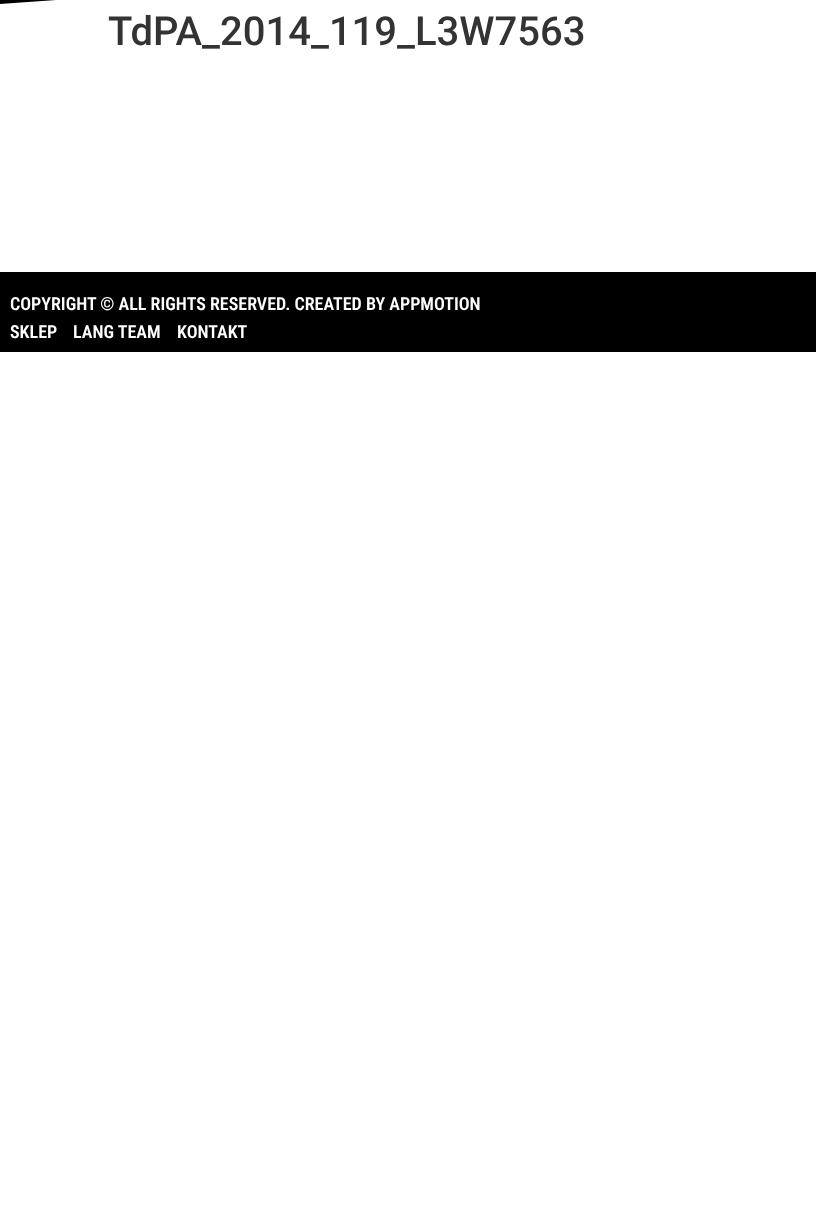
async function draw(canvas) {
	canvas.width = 816;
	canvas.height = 1219;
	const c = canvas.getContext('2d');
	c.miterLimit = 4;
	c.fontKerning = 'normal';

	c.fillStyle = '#fff';
	c.fillRect(0, 0, 816, 1219);
	c.fillStyle = '#000';
	c.beginPath();
	c.moveTo(0, -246);
	c.lineTo(816, -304);
	c.lineTo(816, -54);
	c.lineTo(0, 4);
	c.closePath();
	c.fill();
	c.font = '500 40px Roboto';
	c.fillStyle = '#333';
	c.fillText('TdPA_2014_119_L3W7563', 108, 45);
	c.fillStyle = '#000';
	c.fillRect(0, 272, 816, 80);
	c.font = '600 18px Roboto Condensed';
	c.fillStyle = '#fff';
	for (const [text, x, y] of [
		['COPYRIGHT © ALL RIGHTS RESERVED. CREATED BY APPMOTION', 10, 310],
		['SKLEP', 10, 338],
		['LANG TEAM', 73, 338],
		['KONTAKT', 177, 338],
	]) {
		c.fillText(text, x, y);
	}
}

draw(document.querySelector('canvas'));
